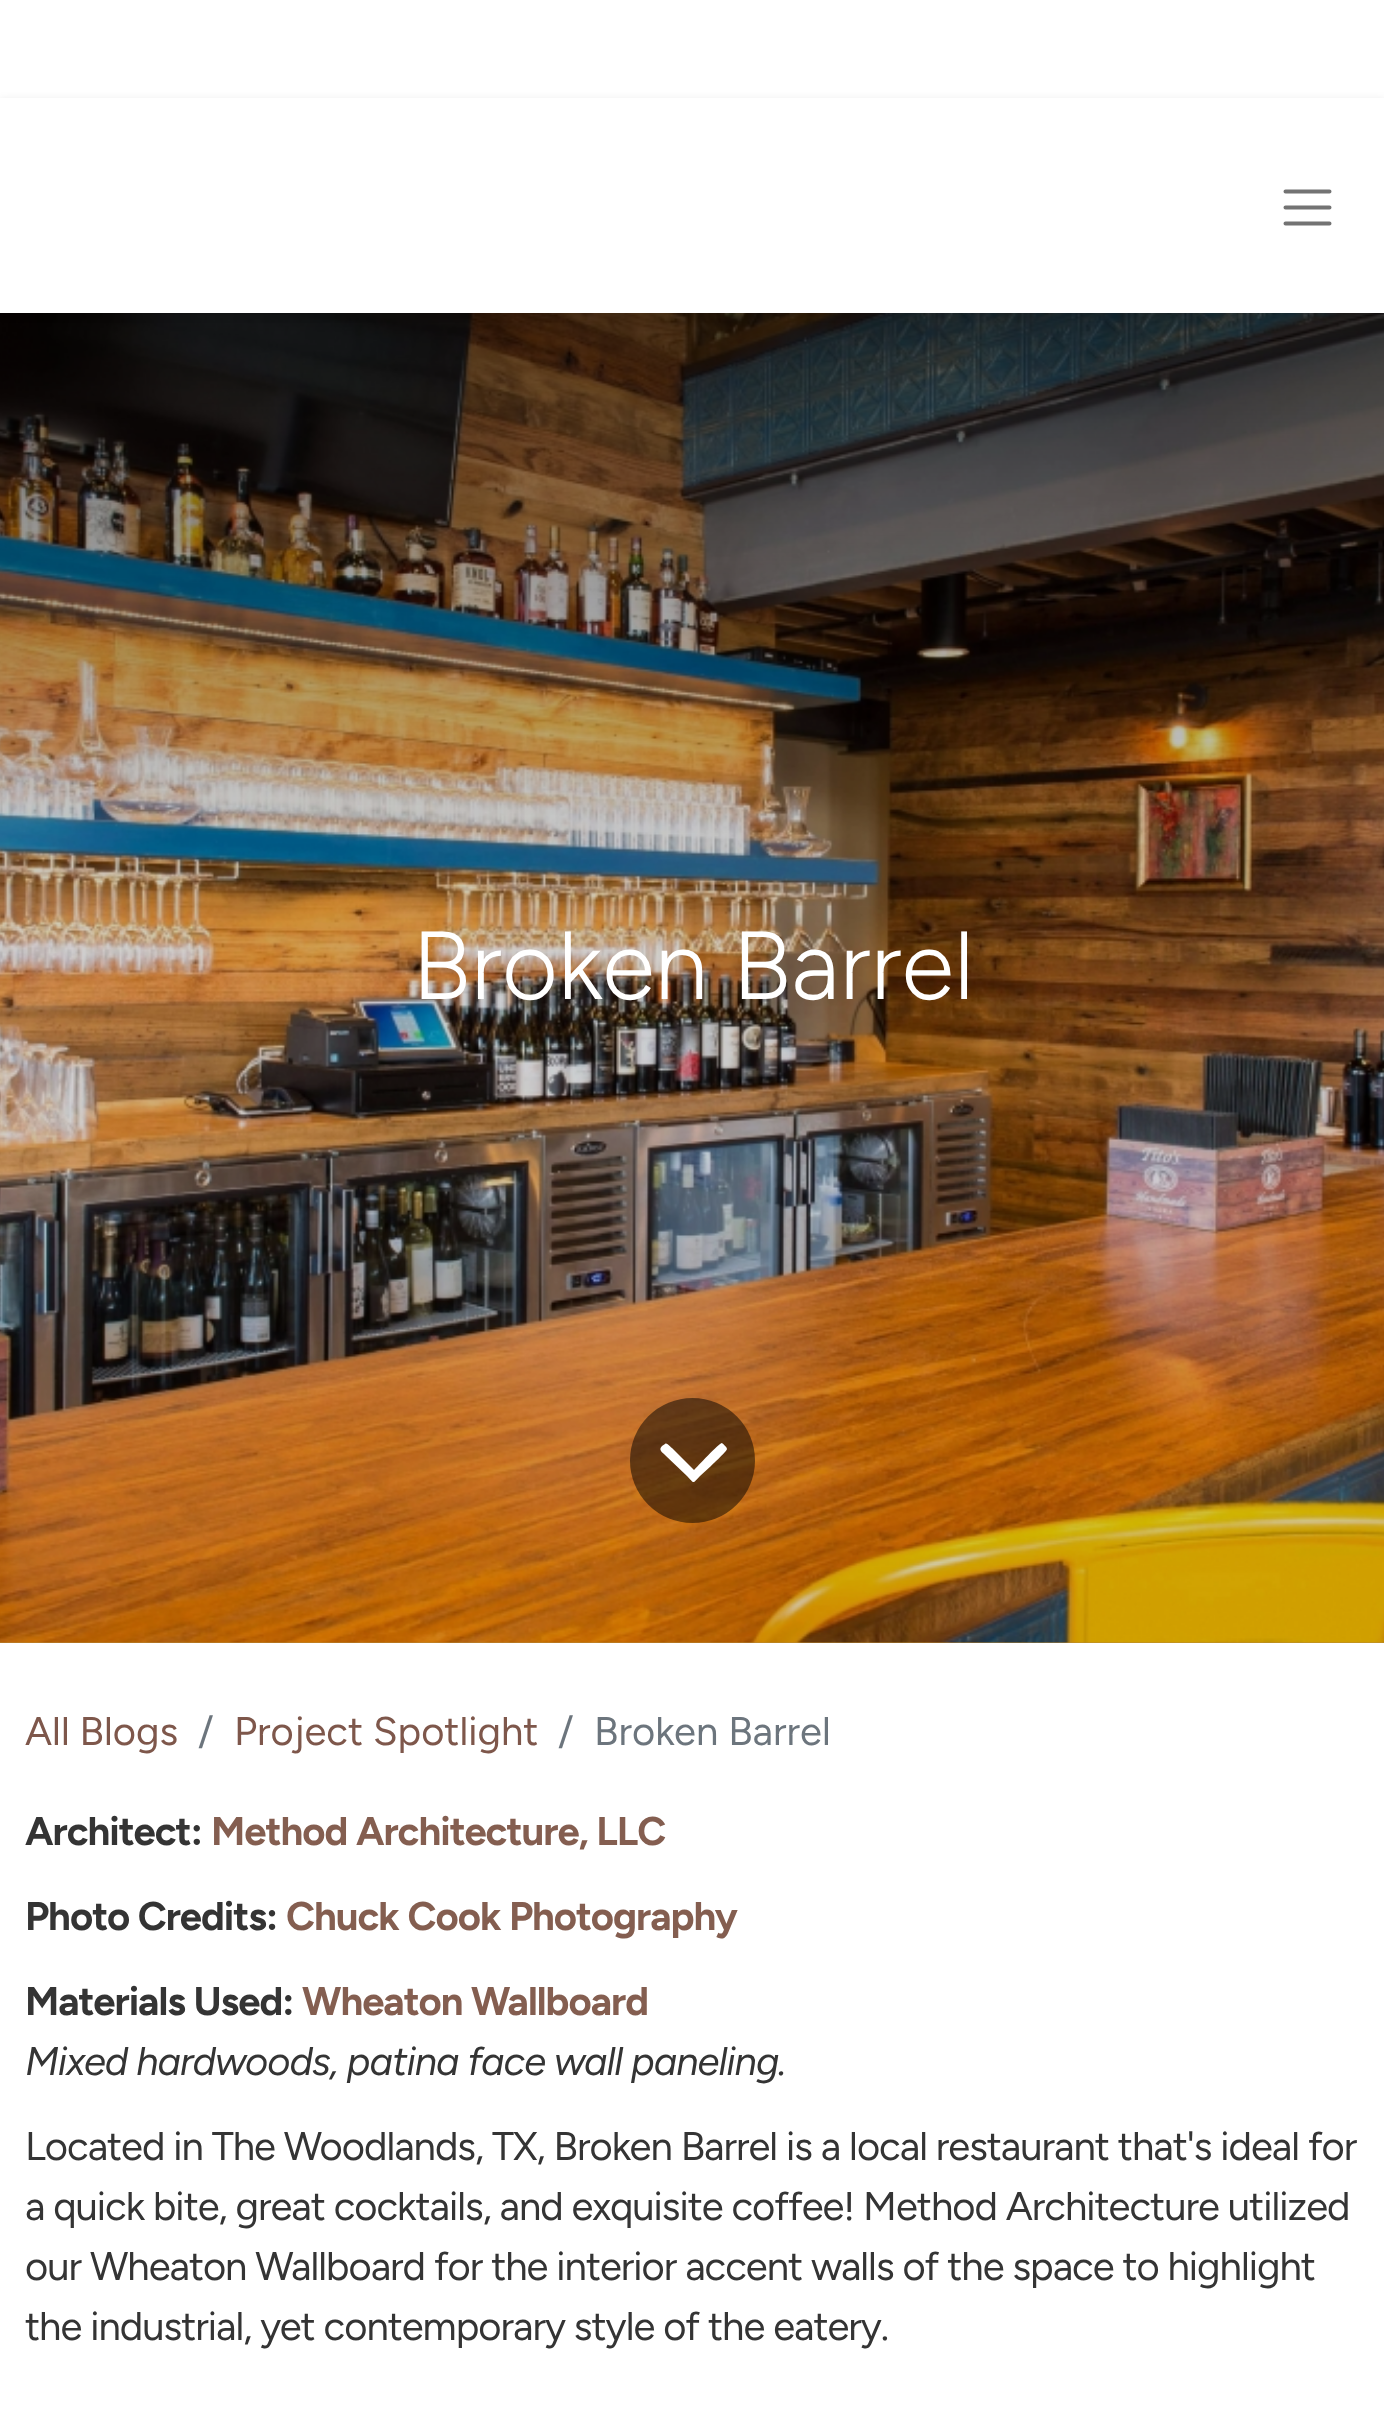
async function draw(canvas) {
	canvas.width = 1384;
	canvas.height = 2417;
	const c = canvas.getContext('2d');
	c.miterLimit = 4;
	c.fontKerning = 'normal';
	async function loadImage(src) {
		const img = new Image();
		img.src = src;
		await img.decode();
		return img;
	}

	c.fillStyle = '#fff';
	c.fillRect(0, 0, 1384, 2417);
	c.fillStyle = '#b5893b';
	c.fillRect(0, 1642, 1384, 1);
	c.drawImage(await loadImage('img1.png'), 0, 313, 1384, 1330);
	c.fillStyle = '#0000001a';
	c.filter = 'blur(4px)';
	c.beginPath();
	c.rect(0, 100, 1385, 215);
	c.fill();
	c.filter = 'none';
	c.fillStyle = '#fff';
	c.fillRect(0, 98, 1384, 215);
	c.beginPath();
	c.moveTo(1285.5, 191.5);
	c.lineTo(1329.5, 191.5);
	c.moveTo(1285.5, 207.5);
	c.lineTo(1329.5, 207.5);
	c.moveTo(1285.5, 223.5);
	c.lineTo(1329.5, 223.5);
	c.strokeStyle = '#737373';
	c.lineWidth = 4;
	c.lineCap = 'round';
	c.stroke();
	c.font = '300 96.5px Figtree';
	c.fillText('Broken Barrel', 412, 999);
	c.fillStyle = '#00000080';
	c.beginPath();
	c.arc(692.5, 1460.5, 62.5, 0, 2 * Math.PI);
	c.fill();
	c.fillStyle = '#fff';
	c.beginPath();
	c.moveTo(727, 1449);
	c.bezierCurveTo(727, 1447, 723, 1444, 722, 1443);
	c.bezierCurveTo(719, 1443, 697, 1467, 694, 1470);
	c.lineTo(672, 1448);
	c.bezierCurveTo(671, 1448, 667, 1442, 665, 1444);
	c.lineTo(662, 1446);
	c.bezierCurveTo(658, 1450, 662, 1452, 666, 1456);
	c.lineTo(687, 1476);
	c.bezierCurveTo(695, 1484, 692, 1484, 700, 1476);
	c.lineTo(711, 1466);
	c.bezierCurveTo(713, 1464, 727, 1451, 727, 1449);
	c.closePath();
	c.fill();
	c.font = '40px Figtree';
	c.fillStyle = '#7e574b';
	c.fillText('All Blogs', 25, 1745);
	c.fillStyle = '#6c757d';
	c.fillText('/', 198, 1745);
	c.fillStyle = '#7e574b';
	c.fillText('Project Spotlight', 234, 1745);
	c.fillStyle = '#6c757d';
	c.fillText('/', 558, 1745);
	c.fillText('Broken Barrel', 594, 1745);
	c.letterSpacing = '-1px';
	c.font = 'bold 40px Figtree';
	c.fillStyle = '#343434';
	c.fillText('Architect:', 25, 1845);
	c.fillStyle = '#845e50';
	c.fillText('Method Architecture, LLC', 211, 1845);
	c.fillStyle = '#343434';
	c.fillText('Photo Credits:', 25, 1930);
	c.fillStyle = '#845e50';
	c.fillText('Chuck Cook Photography', 286, 1930);
	c.fillStyle = '#343434';
	c.fillText('Materials Used:', 25, 2015);
	c.fillStyle = '#845e50';
	c.fillText('Wheaton Wallboard', 302, 2015);
	c.font = 'italic 40px Figtree';
	c.fillStyle = '#343434';
	c.fillText('Mixed hardwoods, patina face wall paneling.', 25, 2075);
	c.font = '40px Figtree';
	for (const [text, x, y] of [
		['Located in The Woodlands, TX, Broken Barrel is a local restaurant that\'s ideal for', 25, 2160],
		['a quick bite, great cocktails, and exquisite coffee! Method Architecture utilized', 25, 2220],
		['our Wheaton Wallboard for the interior accent walls of the space to highlight', 25, 2280],
		['the industrial, yet contemporary style of the eatery.', 25, 2340],
	]) {
		c.fillText(text, x, y);
	}
}

draw(document.querySelector('canvas'));
